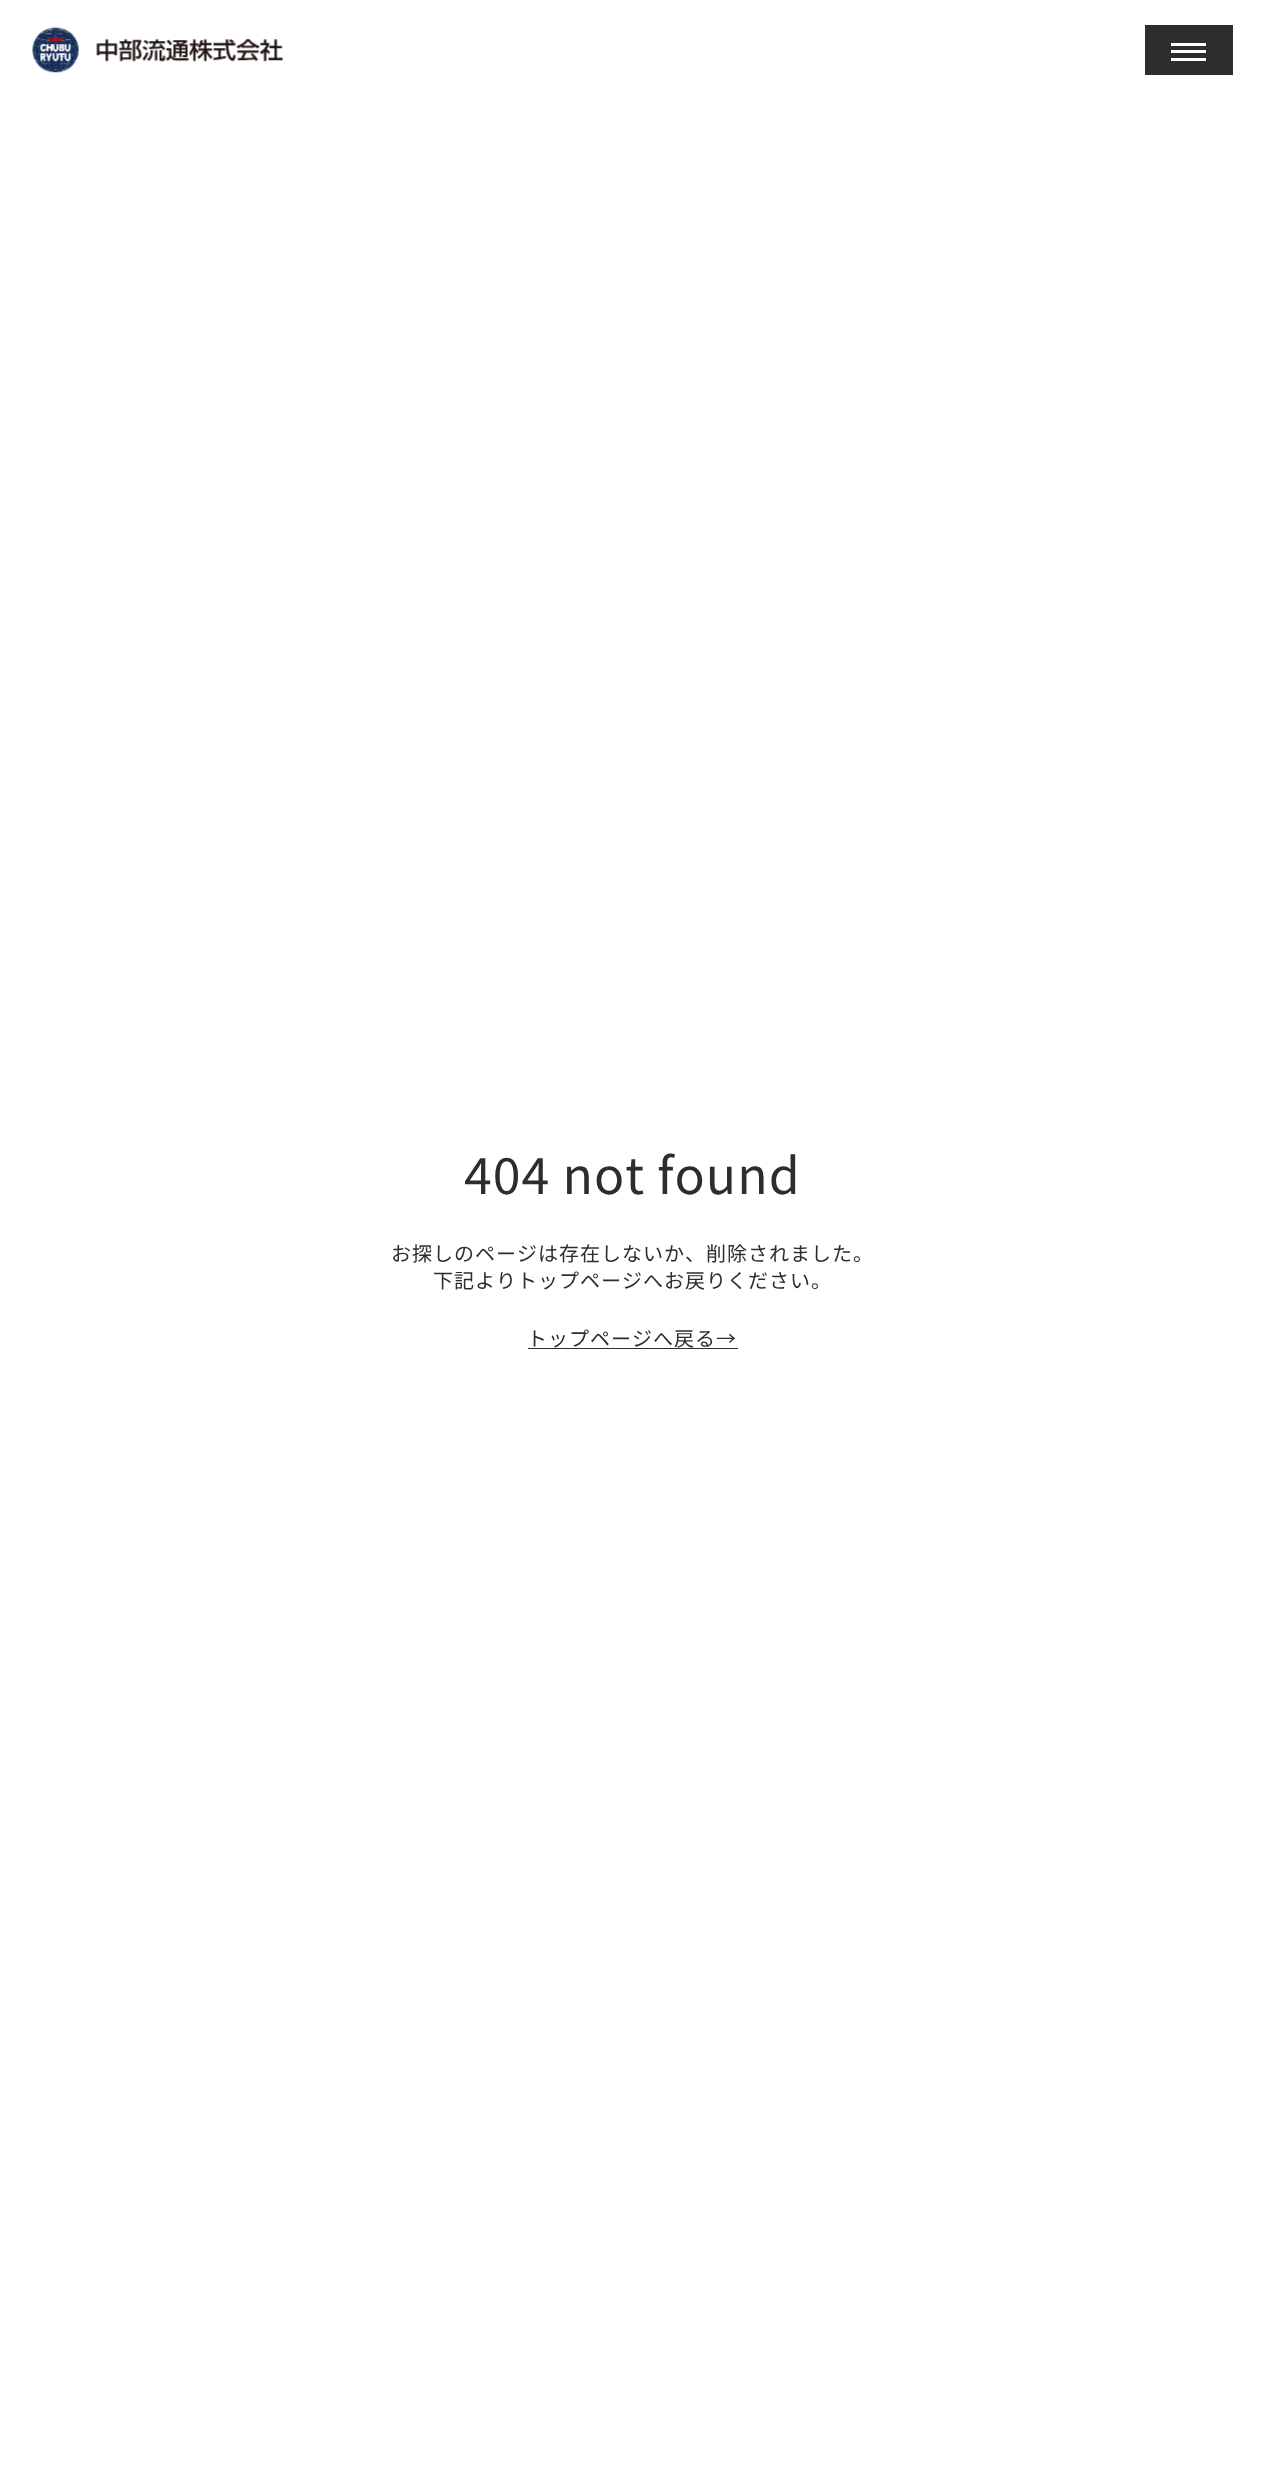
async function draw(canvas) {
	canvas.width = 1264;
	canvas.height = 2490;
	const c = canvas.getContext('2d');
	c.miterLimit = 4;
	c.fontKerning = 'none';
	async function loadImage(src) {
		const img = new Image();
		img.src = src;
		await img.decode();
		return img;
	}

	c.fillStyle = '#fff';
	c.fillRect(0, 0, 1264, 2490);
	c.drawImage(await loadImage('img1.png'), 32, 27, 251, 46);
	for (const [x, y, w, h, color] of [
		[1145, 25, 88, 50, '#2d2d2d'],
		[1171, 43, 35, 3, '#fff'],
		[1171, 50, 35, 3, '#fff'],
		[1171, 58, 35, 3, '#fff'],
	]) {
		c.fillStyle = color;
		c.fillRect(x, y, w, h);
	}
	c.letterSpacing = '1px';
	c.font = '50px Noto Sans JP';
	c.fillStyle = '#2d2d2d';
	c.fillText('404 not found', 464, 1194);
	c.font = '20px Noto Sans JP';
	for (const [text, x, y] of [
		['お探しのページは存在しないか、削除されました。', 391, 1261],
		['下記よりトップページへお戻りください。', 433, 1288],
		['トップページへ戻る→', 527, 1346],
	]) {
		c.fillText(text, x, y);
	}
	c.fillRect(528, 1348, 210, 1);
}

draw(document.querySelector('canvas'));
